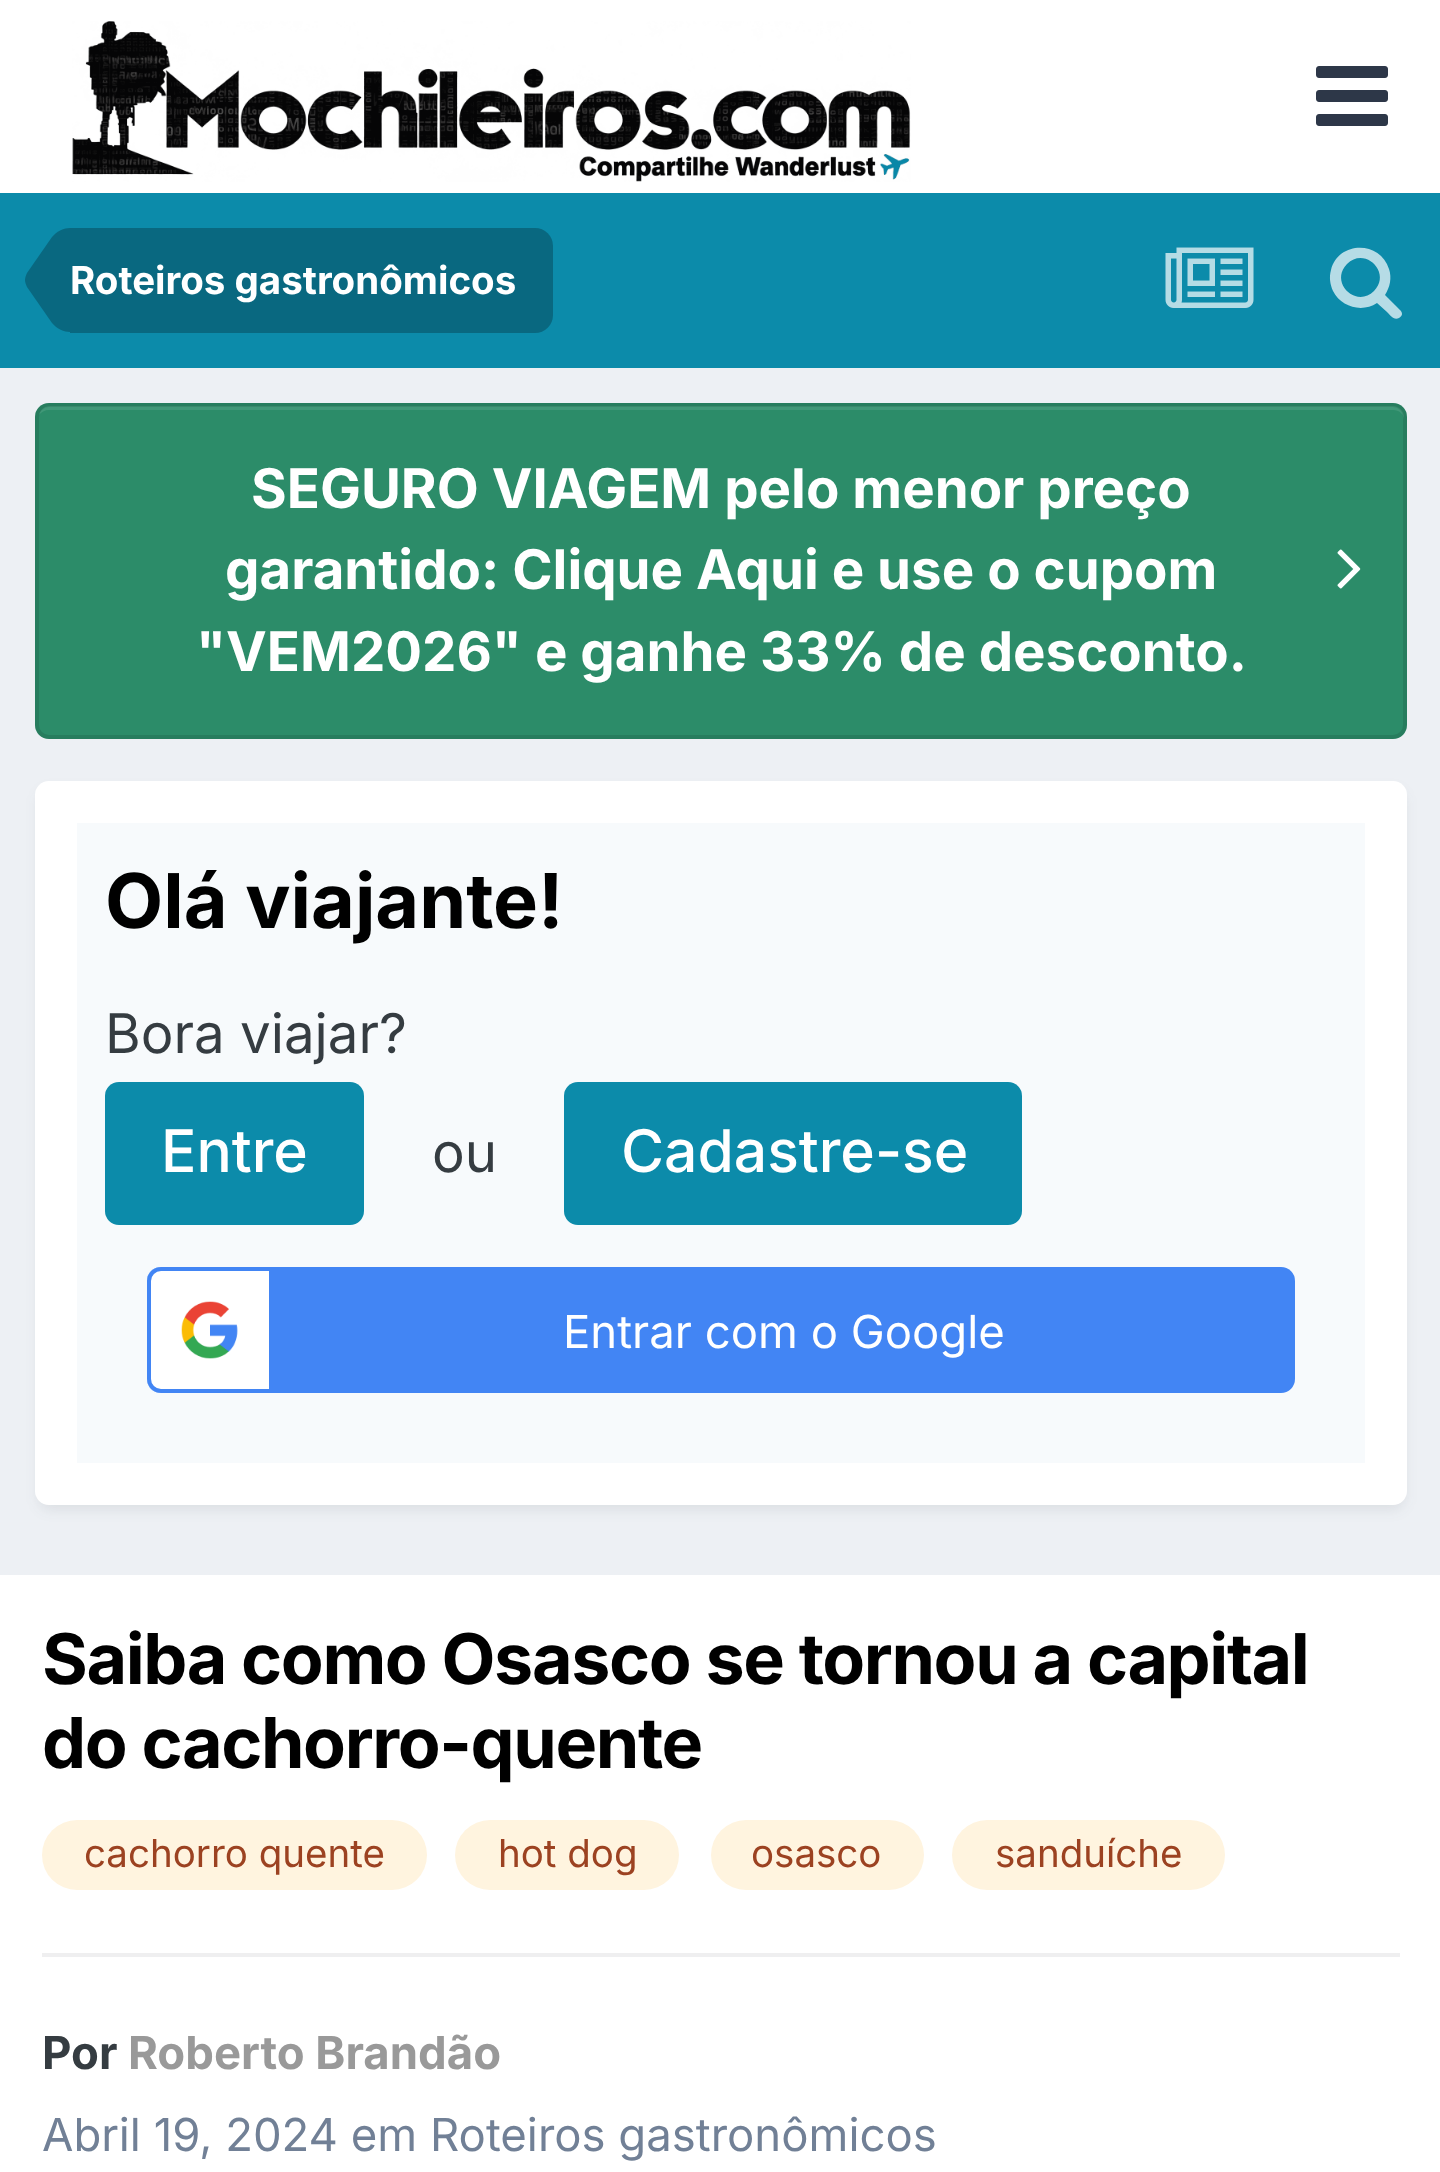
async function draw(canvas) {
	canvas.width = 1440;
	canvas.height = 2172;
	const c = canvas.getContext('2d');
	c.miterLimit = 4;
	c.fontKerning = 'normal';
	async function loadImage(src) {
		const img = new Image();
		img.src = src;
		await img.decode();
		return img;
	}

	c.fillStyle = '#edf0f4';
	c.fillRect(0, 0, 1440, 2172);
	c.fillStyle = '#fff';
	c.fillRect(0, 0, 1440, 193);
	c.drawImage(await loadImage('img1.png'), 72, 21, 839, 161);
	c.drawImage(await loadImage('img2.png'), 1316, 66, 72, 60);
	c.fillStyle = '#0c8baa';
	c.fillRect(0, 193, 1440, 175);
	c.fillStyle = '#096880';
	c.beginPath();
	c.roundRect(70, 228, 483, 105, [0, 18, 18, 0]);
	c.fill();
	c.beginPath();
	c.moveTo(70, 280);
	c.lineTo(70, 332);
	c.bezierCurveTo(64, 332, 57, 329, 52, 323);
	c.lineTo(27, 287);
	c.bezierCurveTo(26, 285, 25, 282, 25, 280);
	c.closePath();
	c.fill();
	c.beginPath();
	c.moveTo(70, 280);
	c.lineTo(25, 280);
	c.bezierCurveTo(25, 278, 26, 275, 27, 273);
	c.lineTo(52, 237);
	c.bezierCurveTo(57, 231, 64, 228, 70, 228);
	c.closePath();
	c.fill();
	c.font = 'bold 38.5px Inter';
	c.fillStyle = '#fff';
	c.fillText('Roteiros gastronômicos', 70, 294);
	c.drawImage(await loadImage('img3.png'), 1165, 247, 89, 61);
	c.fillStyle = '#b6dce6';
	c.beginPath();
	c.moveTo(1374, 291);
	c.bezierCurveTo(1392, 273, 1365, 246, 1347, 264);
	c.bezierCurveTo(1329, 282, 1356, 309, 1374, 291);
	c.closePath();
	c.moveTo(1402, 314);
	c.bezierCurveTo(1402, 315, 1401, 317, 1399, 318);
	c.bezierCurveTo(1394, 321, 1390, 315, 1387, 312);
	c.lineTo(1377, 303);
	c.bezierCurveTo(1362, 313, 1341, 307, 1333, 291);
	c.bezierCurveTo(1330, 284, 1329, 277, 1331, 270);
	c.bezierCurveTo(1338, 241, 1380, 240, 1389, 269);
	c.bezierCurveTo(1392, 278, 1390, 287, 1385, 295);
	c.lineTo(1400, 310);
	c.bezierCurveTo(1401, 311, 1402, 312, 1402, 314);
	c.closePath();
	c.fill();
	c.fillStyle = '#2c8c69';
	c.beginPath();
	c.roundRect(35, 403, 1372, 336, 14);
	c.fill();
	c.fillStyle = '#419878';
	c.beginPath();
	c.moveTo(49, 410);
	c.lineTo(1393, 410);
	c.bezierCurveTo(1399, 410, 1404, 414, 1404, 420);
	c.lineTo(1404, 417);
	c.bezierCurveTo(1404, 411, 1399, 406, 1393, 406);
	c.lineTo(50, 406);
	c.bezierCurveTo(44, 406, 40, 410, 39, 415);
	c.bezierCurveTo(41, 412, 45, 410, 49, 410);
	c.closePath();
	c.fill();
	c.beginPath();
	c.roundRect(37, 405, 1368, 332, 12);
	c.strokeStyle = '#0000001a';
	c.lineWidth = 4;
	c.stroke();
	c.font = 'bold 54.6px Inter';
	c.fillStyle = '#fff';
	c.fillText('SEGURO VIAGEM pelo menor preço', 251, 508);
	c.fillText('garantido: Clique Aqui e use o cupom', 225, 589);
	c.drawImage(await loadImage('img4.png'), 1337, 549, 24, 40);
	c.fillText('"VEM2026" e ganhe 33% de desconto.', 196, 671);
	c.fillStyle = '#2d37481a';
	c.filter = 'blur(7px)';
	c.beginPath();
	c.roundRect(39, 791, 1365, 718, 11);
	c.fill();
	c.filter = 'none';
	c.fillStyle = '#fff';
	c.beginPath();
	c.roundRect(35, 781, 1372, 724, 14);
	c.fill();
	c.fillStyle = '#f7fafc';
	c.fillRect(77, 823, 1288, 640);
	c.font = 'bold 75.5px Inter';
	c.fillStyle = '#000';
	c.fillText('Olá viajante!', 105, 928);
	c.font = '54.6px Inter';
	c.fillStyle = '#353c41';
	c.fillText('Bora viajar?', 105, 1053);
	c.fillStyle = '#0c8baa';
	c.beginPath();
	c.roundRect(105, 1082, 259, 143, 14);
	c.fill();
	c.font = '500 58.75px Inter';
	c.fillStyle = '#fff';
	c.fillText('Entre', 161, 1172);
	c.font = '54.6px Inter';
	c.fillStyle = '#353c41';
	c.fillText('ou', 432, 1172);
	c.fillStyle = '#0c8baa';
	c.beginPath();
	c.roundRect(564, 1082, 458, 143, 14);
	c.fill();
	c.font = '500 58.75px Inter';
	c.fillStyle = '#fff';
	c.fillText('Cadastre-se', 621, 1172);
	c.fillStyle = '#4285f4';
	c.beginPath();
	c.roundRect(147, 1267, 1148, 126, 14);
	c.fill();
	c.fillStyle = '#fff';
	c.beginPath();
	c.roundRect(147, 1267, 126, 126, [14, 0, 0, 14]);
	c.fill();
	c.drawImage(await loadImage('img5.png'), 181, 1301, 57, 58);
	c.beginPath();
	c.roundRect(149, 1269, 122, 122, [12, 0, 0, 12]);
	c.strokeStyle = '#4285f4';
	c.stroke();
	c.font = '45.5px Inter';
	c.fillText('Entrar com o Google', 563, 1348);
	c.fillRect(0, 1575, 1440, 597);
	c.letterSpacing = '-1.4px';
	c.font = 'bold 70px Inter';
	c.fillStyle = '#000';
	c.fillText('Saiba como Osasco se tornou a capital', 42, 1684);
	c.fillText('do cachorro-quente', 42, 1768);
	c.fillStyle = '#fff4df';
	c.beginPath();
	c.roundRect(42, 1820, 385, 70, 35);
	c.fill();
	c.letterSpacing = '0px';
	c.font = '38.5px Inter';
	c.fillStyle = '#9c4221';
	c.fillText('cachorro quente', 84, 1867);
	c.fillStyle = '#fff4df';
	c.beginPath();
	c.roundRect(455, 1820, 224, 70, 35);
	c.fill();
	c.fillStyle = '#9c4221';
	c.fillText('hot dog', 498, 1867);
	c.fillStyle = '#fff4df';
	c.beginPath();
	c.roundRect(711, 1820, 213, 70, 35);
	c.fill();
	c.fillStyle = '#9c4221';
	c.fillText('osasco', 751, 1867);
	c.fillStyle = '#fff4df';
	c.beginPath();
	c.roundRect(952, 1820, 273, 70, 35);
	c.fill();
	c.fillStyle = '#9c4221';
	c.fillText('sanduíche', 995, 1867);
	c.fillStyle = '#efeff0';
	c.fillRect(42, 1953, 1358, 4);
	c.font = 'bold 45.5px Inter';
	c.fillStyle = '#353c41';
	c.fillText('Por', 42, 2069);
	c.fillStyle = '#999';
	c.fillText('Roberto Brandão', 128, 2069);
	c.font = '45.5px Inter';
	c.fillStyle = '#718096';
	c.fillText('Abril 19, 2024 em Roteiros gastronômicos', 42, 2151);
}

draw(document.querySelector('canvas'));
